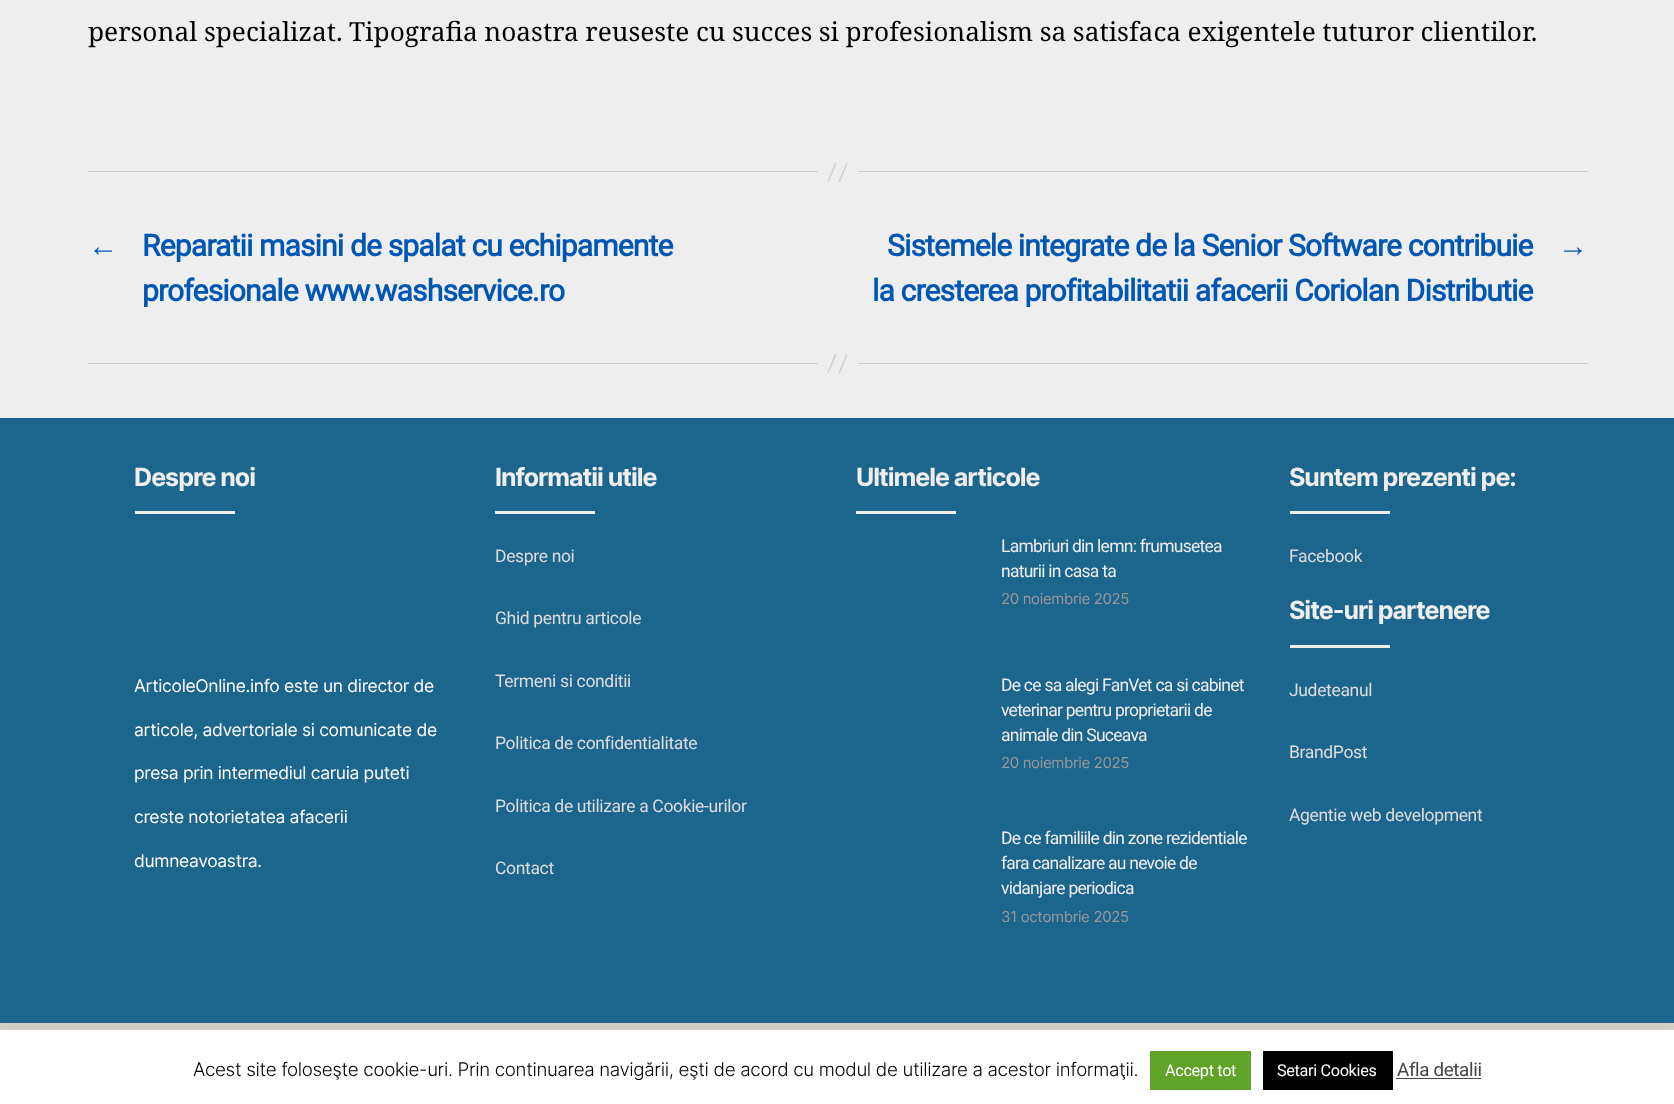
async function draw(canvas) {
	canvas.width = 1674;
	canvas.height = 1104;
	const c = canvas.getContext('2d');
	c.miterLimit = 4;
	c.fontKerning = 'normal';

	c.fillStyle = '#eee';
	c.fillRect(0, 0, 1674, 1104);
	c.wordSpacing = '-0.3px';
	c.font = '26.25px Noto Serif';
	c.fillStyle = '#000';
	c.fillText('personal specializat. Tipografia noastra reuseste cu succes si profesionalism sa satisfaca exigentele tuturor clientilor.', 88, 41);
	c.fillStyle = '#cecece';
	c.fillRect(858, 171, 730, 1);
	c.fillRect(88, 171, 730, 1);
	c.beginPath();
	c.moveTo(835, 163);
	c.lineTo(836.5, 163.5);
	c.lineTo(828.5, 182);
	c.lineTo(827.5, 181.5);
	c.closePath();
	c.moveTo(846.5, 163);
	c.lineTo(847.5, 163.5);
	c.lineTo(840, 182);
	c.lineTo(838.5, 181.5);
	c.closePath();
	c.fill();
	c.letterSpacing = '-0.83px';
	c.wordSpacing = '0px';
	c.font = 'bold 30px Liberation Sans';
	c.fillStyle = '#0056b3';
	c.fillText('←', 88, 256);
	c.font = 'bold 30px Roboto';
	for (const [text, x, y] of [
		['Reparatii masini de spalat cu echipamente', 142, 256],
		['profesionale www.washservice.ro', 142, 301],
		['Sistemele integrate de la Senior Software contribuie', 887, 256],
		['la cresterea profitabilitatii afacerii Coriolan Distributie', 872, 301],
	]) {
		c.fillText(text, x, y);
	}
	c.font = 'bold 30px Liberation Sans';
	c.fillText('→', 1558, 256);
	c.fillStyle = '#cecece';
	c.fillRect(858, 363, 730, 1);
	c.fillRect(88, 363, 730, 1);
	c.beginPath();
	c.moveTo(835, 354);
	c.lineTo(836.5, 354.5);
	c.lineTo(828.5, 373);
	c.lineTo(827.5, 372.5);
	c.closePath();
	c.moveTo(846.5, 354);
	c.lineTo(847.5, 354.5);
	c.lineTo(840, 373);
	c.lineTo(838.5, 372.5);
	c.closePath();
	c.fill();
	c.fillStyle = '#1c658c';
	c.fillRect(0, 418, 1674, 605);
	c.letterSpacing = '-1px';
	c.font = 'bold 25px Inter';
	c.fillStyle = '#eee';
	c.fillText('Despre noi', 134, 486);
	c.fillRect(135, 511, 100, 3);
	c.letterSpacing = '-0.34px';
	c.font = '17.5px Inter';
	c.fillStyle = '#fff';
	for (const [text, x, y] of [
		['ArticoleOnline.info este un director de', 134, 692],
		['articole, advertoriale si comunicate de', 134, 736],
		['presa prin intermediul caruia puteti', 134, 779],
		['creste notorietatea afacerii', 134, 823],
		['dumneavoastra.', 134, 867],
	]) {
		c.fillText(text, x, y);
	}
	c.letterSpacing = '-1px';
	c.font = 'bold 25px Inter';
	c.fillStyle = '#eee';
	c.fillText('Informatii utile', 495, 486);
	c.fillRect(495, 511, 100, 3);
	c.letterSpacing = '-0.34px';
	c.font = '17.5px Roboto';
	c.fillStyle = '#ddd';
	for (const [text, x, y] of [
		['Despre noi', 495, 562],
		['Ghid pentru articole', 495, 624],
		['Termeni si conditii', 495, 687],
		['Politica de confidentialitate', 495, 749],
		['Politica de utilizare a Cookie-urilor', 495, 812],
		['Contact', 495, 874],
	]) {
		c.fillText(text, x, y);
	}
	c.letterSpacing = '-1px';
	c.font = 'bold 25px Inter';
	c.fillStyle = '#eee';
	c.fillText('Ultimele articole', 856, 486);
	c.fillRect(856, 511, 100, 3);
	c.letterSpacing = '-0.75px';
	c.font = '17.5px Roboto';
	c.fillText('Lambriuri din lemn: frumusetea', 1001, 552);
	c.fillText('naturii in casa ta', 1001, 577);
	c.letterSpacing = '-0.34px';
	c.font = '15px Inter';
	c.fillStyle = '#999';
	c.fillText('20 noiembrie 2025', 1001, 604);
	c.letterSpacing = '-0.75px';
	c.font = '17.5px Roboto';
	c.fillStyle = '#eee';
	for (const [text, x, y] of [
		['De ce sa alegi FanVet ca si cabinet', 1001, 691],
		['veterinar pentru proprietarii de', 1001, 716],
		['animale din Suceava', 1001, 741],
	]) {
		c.fillText(text, x, y);
	}
	c.letterSpacing = '-0.34px';
	c.font = '15px Inter';
	c.fillStyle = '#999';
	c.fillText('20 noiembrie 2025', 1001, 768);
	c.letterSpacing = '-0.75px';
	c.font = '17.5px Roboto';
	c.fillStyle = '#eee';
	for (const [text, x, y] of [
		['De ce familiile din zone rezidentiale', 1001, 844],
		['fara canalizare au nevoie de', 1001, 869],
		['vidanjare periodica', 1001, 894],
	]) {
		c.fillText(text, x, y);
	}
	c.letterSpacing = '-0.34px';
	c.font = '15px Inter';
	c.fillStyle = '#999';
	c.fillText('31 octombrie 2025', 1001, 922);
	c.letterSpacing = '-1px';
	c.font = 'bold 25px Inter';
	c.fillStyle = '#eee';
	c.fillText('Suntem prezenti pe:', 1289, 486);
	c.fillRect(1290, 511, 100, 3);
	c.letterSpacing = '-0.34px';
	c.font = '17.5px Roboto';
	c.fillStyle = '#ddd';
	c.fillText('Facebook', 1289, 562);
	c.letterSpacing = '-1px';
	c.font = 'bold 25px Inter';
	c.fillStyle = '#eee';
	c.fillText('Site-uri partenere', 1289, 619);
	c.fillRect(1290, 645, 100, 3);
	c.letterSpacing = '-0.34px';
	c.font = '17.5px Roboto';
	c.fillStyle = '#ddd';
	for (const [text, x, y] of [
		['Judeteanul', 1289, 696],
		['BrandPost', 1289, 758],
		['Agentie web development', 1289, 821],
	]) {
		c.fillText(text, x, y);
	}
	c.fillStyle = '#d8d2cb';
	c.fillRect(0, 1023, 1674, 7);
	c.fillStyle = '#acabab4d';
	c.filter = 'blur(6px)';
	c.beginPath();
	c.rect(0, 1029, 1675, 75);
	c.fill();
	c.filter = 'none';
	c.fillStyle = '#fff';
	c.fillRect(0, 1030, 1674, 74);
	c.font = '300 18.75px Inter';
	c.fillStyle = '#000';
	c.fillText('Acest site foloseşte cookie-uri. Prin continuarea navigării, eşti de acord cu modul de utilizare a acestor informaţii.', 193, 1076);
	c.fillStyle = '#61a229';
	c.fillRect(1150, 1051, 101, 39);
	c.font = '16.25px Roboto';
	c.fillStyle = '#fff';
	c.fillText('Accept tot', 1165, 1076);
	c.fillStyle = '#000';
	c.fillRect(1263, 1051, 130, 39);
	c.fillStyle = '#fff';
	c.fillText('Setari Cookies', 1277, 1076);
	c.font = '18.75px Roboto';
	c.fillStyle = '#444';
	c.fillText('Afla detalii', 1397, 1076);
	c.fillRect(1396, 1078, 85, 1);
}

draw(document.querySelector('canvas'));
